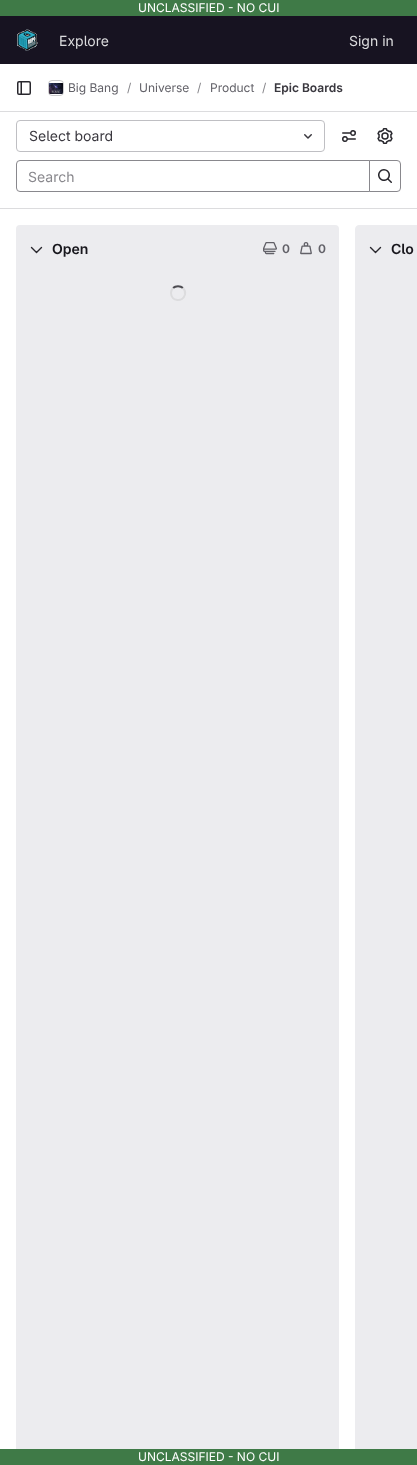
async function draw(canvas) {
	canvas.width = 417;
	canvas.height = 1465;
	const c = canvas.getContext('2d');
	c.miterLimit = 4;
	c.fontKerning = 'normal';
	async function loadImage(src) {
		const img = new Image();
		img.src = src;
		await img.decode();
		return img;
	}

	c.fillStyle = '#fff';
	c.fillRect(0, 0, 417, 1465);
	c.fillStyle = '#3f7a47';
	c.fillRect(0, 0, 417, 16);
	c.font = '12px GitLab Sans';
	c.fillStyle = '#fff';
	c.fillText('UNCLASSIFIED - NO CUI', 138, 12);
	c.fillStyle = '#171321';
	c.fillRect(0, 16, 417, 48);
	c.drawImage(await loadImage('img1.png'), 17, 29, 21, 22);
	c.font = '14px GitLab Sans';
	c.fillStyle = '#dcdcde';
	c.fillText('Explore', 59, 46);
	c.fillText('Sign in', 349, 46);
	c.fillRect(0, 111, 417, 1);
	c.drawImage(await loadImage('img2.png'), 17, 81, 14, 14);
	c.beginPath();
	c.roundRect(48.5, 80.5, 15, 15, 3.5);
	c.strokeStyle = '#dcdcde';
	c.stroke();
	c.drawImage(await loadImage('img3.png'), 49, 83, 14, 11);
	c.beginPath();
	c.roundRect(48.5, 80.5, 15, 15, 3.5);
	c.strokeStyle = '#05050614';
	c.stroke();
	c.font = '12px GitLab Sans';
	c.fillStyle = '#626168';
	c.fillText('Big Bang', 68, 92);
	c.fillStyle = '#89888d';
	c.fillText('/', 127, 92);
	c.fillStyle = '#626168';
	c.fillText('Universe', 139, 92);
	c.fillStyle = '#89888d';
	c.fillText('/', 197, 92);
	c.fillStyle = '#626168';
	c.fillText('Product', 210, 92);
	c.fillStyle = '#89888d';
	c.fillText('/', 262, 92);
	c.font = '600 12px GitLab Sans';
	c.fillStyle = '#3a383f';
	c.fillText('Epic Boards', 274, 92);
	c.fillStyle = '#dcdcde';
	c.fillRect(0, 208, 417, 1);
	c.beginPath();
	c.roundRect(16.5, 120.5, 308, 31, 3.5);
	c.strokeStyle = '#bfbfc3';
	c.stroke();
	c.font = '14px GitLab Sans';
	c.fillStyle = '#3a383f';
	c.fillText('Select board', 29, 141);
	c.drawImage(await loadImage('img4.png'), 304, 134, 8, 5);
	c.drawImage(await loadImage('img5.png'), 342, 130, 14, 12);
	c.drawImage(await loadImage('img6.png'), 377, 128, 16, 16);
	c.beginPath();
	c.roundRect(16.5, 160.5, 353, 31, [3.5, 0, 0, 3.5]);
	c.strokeStyle = '#89888d';
	c.stroke();
	c.fillStyle = '#89888d';
	c.fillText('Search', 28, 182);
	c.fillStyle = '#fff';
	c.beginPath();
	c.roundRect(369.5, 160.5, 31, 31, [0, 3.5, 3.5, 0]);
	c.fill();
	c.stroke();
	c.drawImage(await loadImage('img7.png'), 378, 169, 14, 14);
	c.fillStyle = '#ececef';
	c.beginPath();
	c.roundRect(16, 225, 323, 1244, 4);
	c.fill();
	c.beginPath();
	c.moveTo(31.5, 247.5);
	c.lineTo(36.5, 252.5);
	c.lineTo(41.5, 247.5);
	c.strokeStyle = '#28272d';
	c.lineWidth = 1.4;
	c.lineCap = 'round';
	c.lineJoin = 'round';
	c.stroke();
	c.font = '600 14px GitLab Sans';
	c.fillStyle = '#18171d';
	c.fillText('Open', 52, 254);
	c.drawImage(await loadImage('img8.png'), 263, 242, 14, 13);
	c.font = '600 12px GitLab Sans';
	c.fillStyle = '#626168';
	c.fillText('0', 282, 253);
	c.drawImage(await loadImage('img9.png'), 300, 242, 12, 13);
	c.fillText('0', 318, 253);
	c.beginPath();
	c.moveTo(173, 288);
	c.bezierCurveTo(175.5, 285.5, 180.5, 285.5, 183, 288);
	c.strokeStyle = '#4c4b51';
	c.lineWidth = 2;
	c.lineCap = 'butt';
	c.lineJoin = 'miter';
	c.stroke();
	c.beginPath();
	c.moveTo(183, 288);
	c.bezierCurveTo(184.5, 289.5, 185.5, 292, 185, 294.5);
	c.bezierCurveTo(183, 302.5, 171, 301.5, 171, 293);
	c.bezierCurveTo(171, 291, 171.5, 289.5, 173, 288);
	c.strokeStyle = '#dcdcde';
	c.stroke();
	c.fillStyle = '#ececef';
	c.beginPath();
	c.moveTo(359, 225);
	c.lineTo(417, 225);
	c.lineTo(417, 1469);
	c.lineTo(359, 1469);
	c.bezierCurveTo(357, 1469, 355, 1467, 355, 1465);
	c.lineTo(355, 229);
	c.bezierCurveTo(355, 227, 357, 225, 359, 225);
	c.closePath();
	c.fill();
	c.beginPath();
	c.moveTo(370.5, 247.5);
	c.lineTo(375.5, 252.5);
	c.lineTo(380.5, 247.5);
	c.strokeStyle = '#28272d';
	c.lineWidth = 1.4;
	c.lineCap = 'round';
	c.lineJoin = 'round';
	c.stroke();
	c.font = '600 14px GitLab Sans';
	c.fillStyle = '#18171d';
	c.fillText('Clo', 391, 254);
	c.fillStyle = '#3f7a47';
	c.fillRect(0, 1449, 417, 16);
	c.font = '12px GitLab Sans';
	c.fillStyle = '#fff';
	c.fillText('UNCLASSIFIED - NO CUI', 138, 1461);
}

draw(document.querySelector('canvas'));
